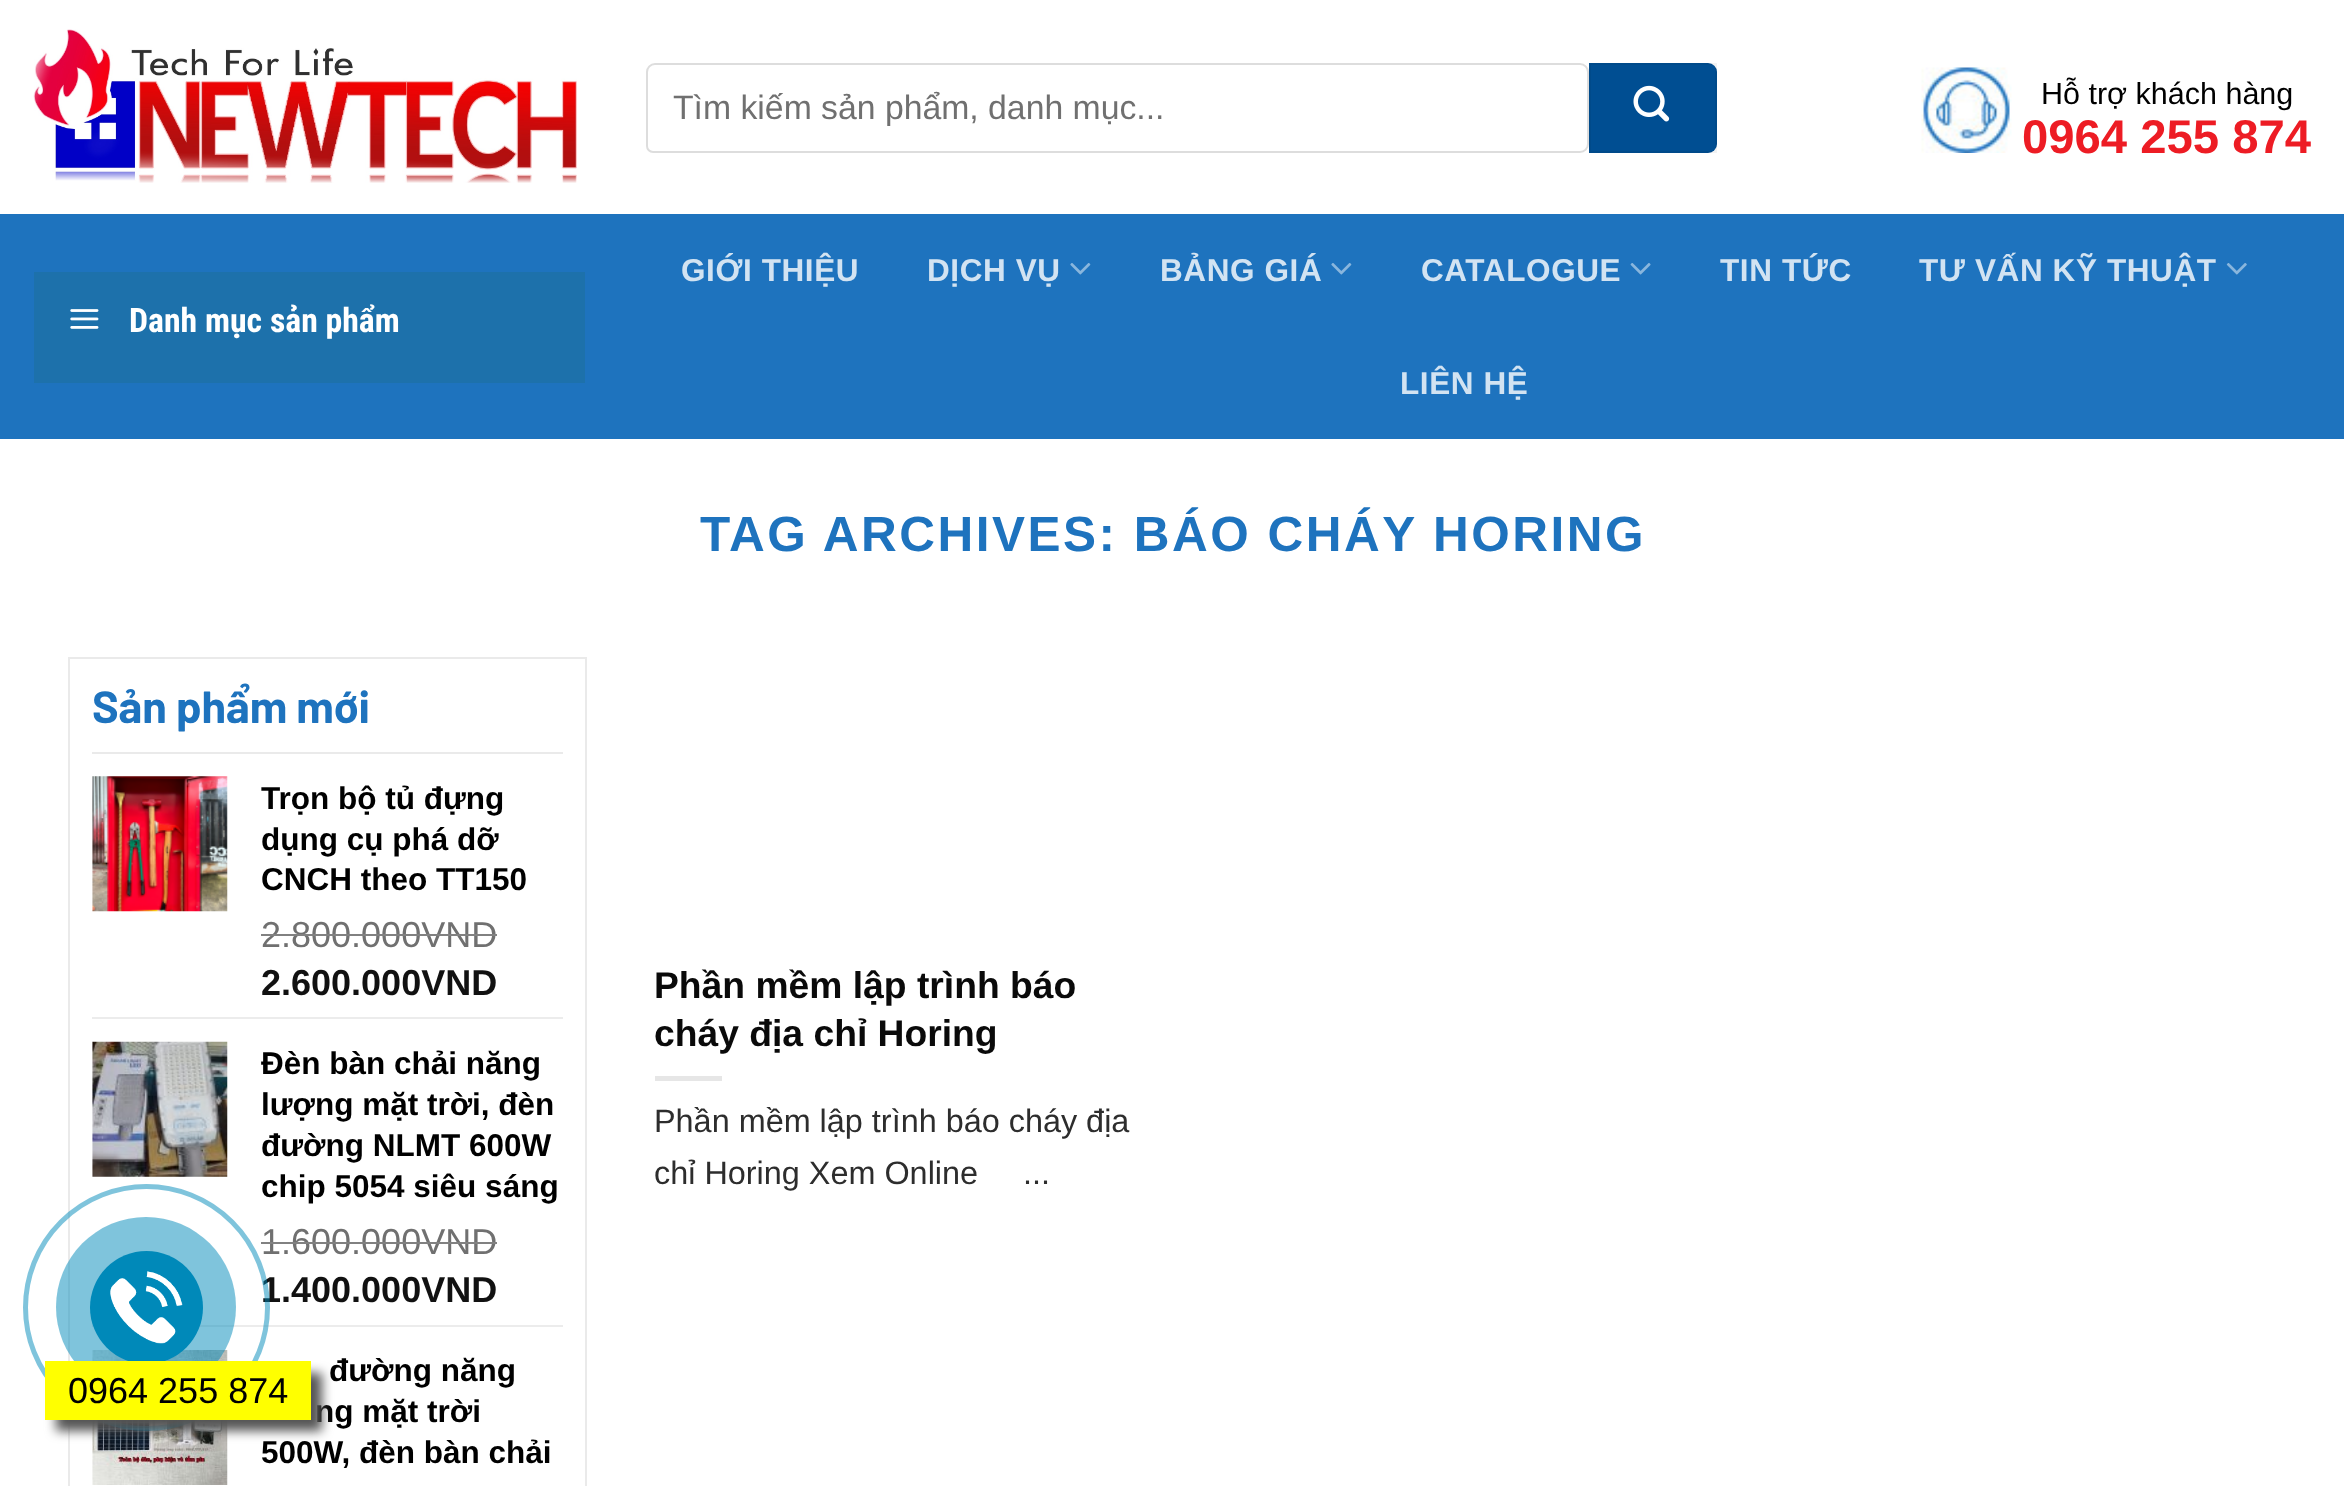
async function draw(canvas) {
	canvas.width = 2344;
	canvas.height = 1486;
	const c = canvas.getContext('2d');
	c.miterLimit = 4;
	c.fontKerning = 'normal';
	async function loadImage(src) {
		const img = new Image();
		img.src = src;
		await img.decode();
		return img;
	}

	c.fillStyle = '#fff';
	c.fillRect(0, 0, 2344, 1486);
	c.drawImage(await loadImage('img1.png'), 33, 29, 544, 154);
	c.beginPath();
	c.roundRect(647, 64, 941, 88, [8, 8, 8, 6]);
	c.strokeStyle = '#ddd';
	c.lineWidth = 2;
	c.stroke();
	c.font = '33.75px Liberation Sans';
	c.fillStyle = '#707070';
	c.fillText('Tìm kiếm sản phẩm, danh mục...', 673, 119);
	c.fillStyle = '#004e92';
	c.beginPath();
	c.roundRect(1589, 63, 128, 90, [0, 9, 9, 0]);
	c.fill();
	c.strokeStyle = '#0000000d';
	c.strokeRect(1590, 64, 126, 88);
	c.drawImage(await loadImage('img2.png'), 1633, 85, 37, 37);
	c.drawImage(await loadImage('img3.png'), 1921, 67, 91, 86);
	c.font = '30.5px Liberation Sans';
	c.fillStyle = '#000';
	c.fillText('Hỗ trợ khách hàng', 2041, 104);
	c.font = 'bold 47.25px Liberation Sans';
	c.fillStyle = '#ed1c24';
	c.fillText('0964 255 874', 2022, 153);
	c.fillStyle = '#1e73be';
	c.fillRect(0, 214, 2344, 225);
	c.fillStyle = '#1d71ab';
	c.fillRect(34, 272, 551, 111);
	c.drawImage(await loadImage('img4.png'), 70, 309, 29, 20);
	c.font = 'bold 33.75px Roboto Condensed';
	c.fillStyle = '#fff';
	c.fillText('Danh mục sản phẩm', 129, 332);
	c.letterSpacing = '0.6px';
	c.font = 'bold 31.5px Liberation Sans';
	c.fillStyle = '#d2e3f2';
	c.fillText('GIỚI THIỆU', 681, 281);
	c.fillText('DỊCH VỤ', 927, 281);
	c.drawImage(await loadImage('img5.png'), 1070, 263, 21, 12);
	c.fillText('BẢNG GIÁ', 1160, 281);
	c.drawImage(await loadImage('img5.png'), 1331, 263, 21, 12);
	c.fillText('CATALOGUE', 1421, 281);
	c.drawImage(await loadImage('img6.png'), 1630, 263, 21, 12);
	c.fillText('TIN TỨC', 1720, 281);
	c.fillText('TƯ VẤN KỸ THUẬT', 1919, 281);
	c.drawImage(await loadImage('img7.png'), 2226, 263, 21, 12);
	c.fillText('LIÊN HỆ', 1400, 394);
	c.letterSpacing = '2.5px';
	c.font = 'bold 49.5px Liberation Sans';
	c.fillStyle = '#1e73be';
	c.fillText('TAG ARCHIVES: BÁO CHÁY HORING', 700, 551);
	c.strokeStyle = '#eaeaea';
	c.strokeRect(69, 658, 517, 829);
	c.fillStyle = '#eaeaea';
	c.fillRect(92, 752, 471, 2);
	c.letterSpacing = '0px';
	c.font = 'bold 45px Barlow';
	c.fillStyle = '#1e73be';
	c.fillText('Sản phẩm mới', 92, 723);
	c.drawImage(await loadImage('img8.png'), 92, 776, 136, 136);
	c.font = 'bold 31.5px Liberation Sans';
	c.fillStyle = '#000';
	for (const [text, x, y] of [
		['Trọn bộ tủ đựng', 261, 809],
		['dụng cụ phá dỡ', 261, 850],
		['CNCH theo TT150', 261, 890],
	]) {
		c.fillText(text, x, y);
	}
	c.font = '36px Liberation Sans';
	c.fillStyle = '#707070';
	c.fillText('2.800.000VND', 261, 947);
	c.fillStyle = '#818181';
	c.fillRect(261, 934, 236, 2);
	c.font = 'bold 36px Liberation Sans';
	c.fillStyle = '#111';
	c.fillText('2.600.000VND', 261, 995);
	c.fillStyle = '#ececec';
	c.fillRect(92, 1017, 471, 2);
	c.drawImage(await loadImage('img9.png'), 92, 1041, 136, 136);
	c.font = 'bold 31.5px Liberation Sans';
	c.fillStyle = '#000';
	for (const [text, x, y] of [
		['Đèn bàn chải năng', 261, 1074],
		['lượng mặt trời, đèn', 261, 1115],
		['đường NLMT 600W', 261, 1156],
		['chip 5054 siêu sáng', 261, 1197],
	]) {
		c.fillText(text, x, y);
	}
	c.font = '36px Liberation Sans';
	c.fillStyle = '#707070';
	c.fillText('1.600.000VND', 261, 1254);
	c.fillStyle = '#818181';
	c.fillRect(261, 1242, 236, 2);
	c.font = 'bold 36px Liberation Sans';
	c.fillStyle = '#111';
	c.fillText('1.400.000VND', 261, 1302);
	c.fillStyle = '#ececec';
	c.fillRect(92, 1325, 471, 2);
	c.drawImage(await loadImage('img10.png'), 92, 1350, 136, 135);
	c.font = 'bold 31.5px Liberation Sans';
	c.fillStyle = '#000';
	for (const [text, x, y] of [
		['đường năng', 329, 1381],
		['ng mặt trời', 315, 1422],
		['500W, đèn bàn chải', 261, 1463],
	]) {
		c.fillText(text, x, y);
	}
	c.font = 'bold 37.25px Liberation Sans';
	c.fillStyle = '#0a0a0a';
	c.fillText('Phần mềm lập trình báo', 654, 998);
	c.fillText('cháy địa chỉ Horing', 654, 1046);
	c.fillStyle = '#e6e6e6';
	c.fillRect(655, 1076, 67, 5);
	c.font = '32.4px Liberation Sans';
	c.fillStyle = '#2d2d2d';
	c.fillText('Phần mềm lập trình báo cháy địa', 654, 1132);
	c.fillText('chỉ Horing Xem Online     ...', 654, 1184);
	c.beginPath();
	c.arc(146.5, 1307.5, 121, 0, 2 * Math.PI);
	c.strokeStyle = '#0089b980';
	c.lineWidth = 5;
	c.stroke();
	c.fillStyle = '#0089b980';
	c.beginPath();
	c.arc(146, 1307, 90, 0, 2 * Math.PI);
	c.fill();
	c.fillStyle = '#0089b9';
	c.beginPath();
	c.arc(146.5, 1307.5, 56.5, 0, 2 * Math.PI);
	c.fill();
	c.drawImage(await loadImage('img11.png'), 110, 1271, 73, 73);
	c.fillStyle = '#555';
	c.filter = 'blur(5.5px)';
	c.beginPath();
	c.rect(56, 1373, 266, 58);
	c.fill();
	c.filter = 'none';
	c.fillStyle = '#ff0';
	c.fillRect(45, 1361, 266, 59);
	c.font = '36px Liberation Sans';
	c.fillStyle = '#000';
	c.fillText('0964 255 874', 68, 1403);
}

draw(document.querySelector('canvas'));
